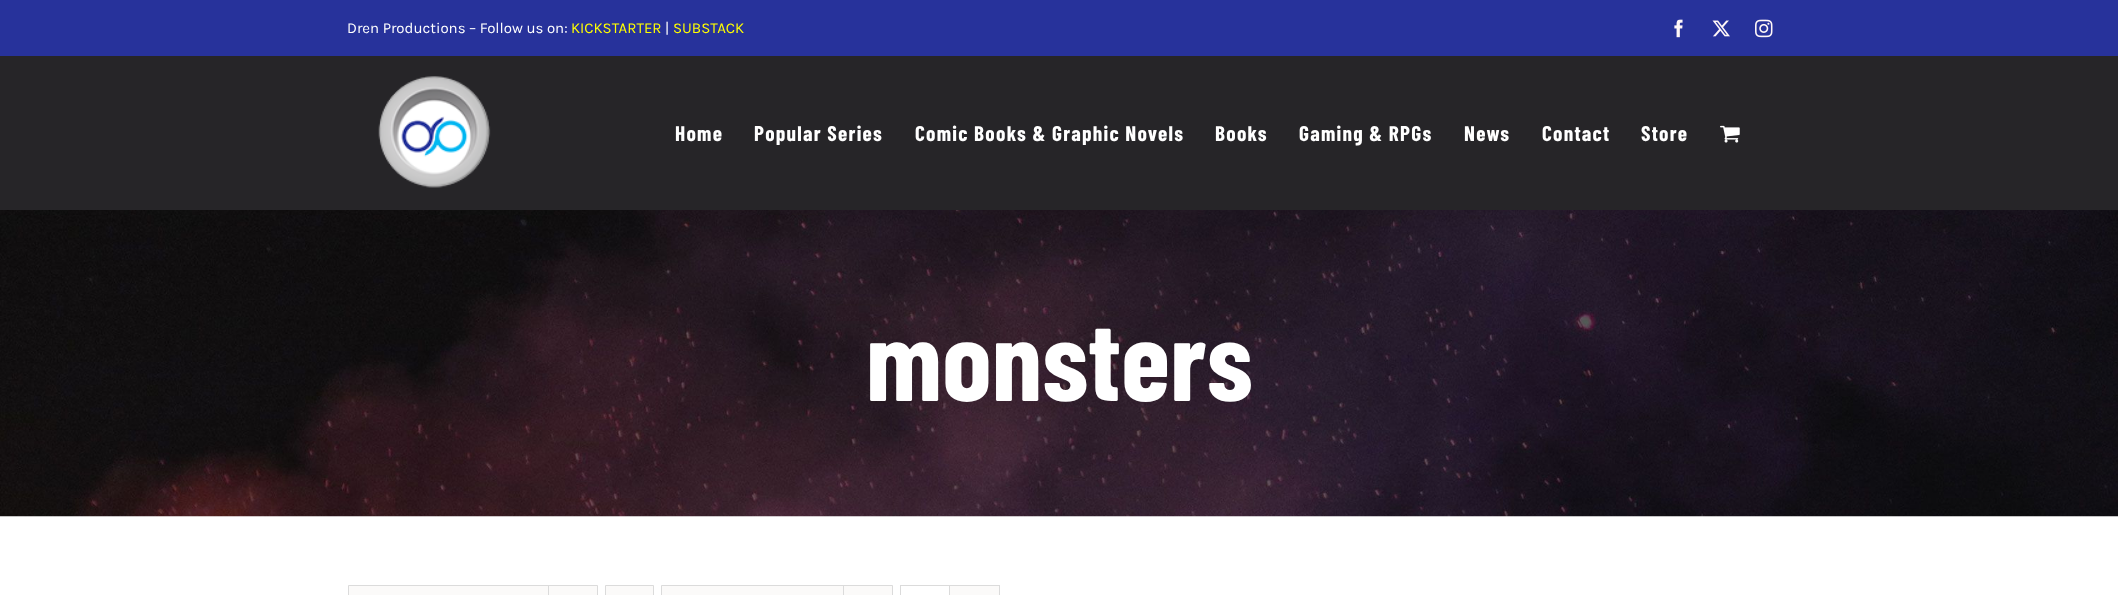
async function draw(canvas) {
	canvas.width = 2118;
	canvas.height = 595;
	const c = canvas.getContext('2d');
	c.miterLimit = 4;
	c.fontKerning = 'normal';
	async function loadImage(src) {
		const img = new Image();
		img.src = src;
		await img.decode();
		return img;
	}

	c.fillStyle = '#fff';
	c.fillRect(0, 0, 2118, 595);
	c.fillStyle = '#27329b';
	c.fillRect(0, 0, 2118, 56);
	c.font = '15px Karla';
	c.fillStyle = '#fff';
	c.fillText('Dren Productions – Follow us on:', 347, 33);
	c.fillStyle = '#ff0';
	c.fillText('KICKSTARTER', 571, 33);
	c.fillStyle = '#fff';
	c.fillText('|', 665, 33);
	c.fillStyle = '#ff0';
	c.fillText('SUBSTACK', 673, 33);
	c.drawImage(await loadImage('img1.png'), 1674, 19, 9, 19);
	c.drawImage(await loadImage('img2.png'), 1712, 20, 18, 17);
	c.drawImage(await loadImage('img3.png'), 1755, 19, 18, 19);
	c.fillStyle = '#262528';
	c.fillRect(0, 56, 2118, 154);
	c.drawImage(await loadImage('img4.png'), 378, 76, 113, 112);
	c.letterSpacing = '1.25px';
	c.font = 'bold 21.25px Barlow Condensed';
	c.fillStyle = '#fff';
	for (const [text, x, y] of [
		['Home', 675, 141],
		['Popular Series', 754, 141],
		['Comic Books & Graphic Novels', 915, 141],
		['Books', 1215, 141],
		['Gaming & RPGs', 1299, 141],
		['News', 1464, 141],
		['Contact', 1542, 141],
		['Store', 1641, 141],
	]) {
		c.fillText(text, x, y);
	}
	c.drawImage(await loadImage('img5.png'), 1720, 125, 20, 18);
	c.drawImage(await loadImage('img6.png'), 0, 210, 2118, 307);
	c.letterSpacing = '0px';
	c.font = 'bold 112.5px Barlow Condensed';
	c.fillText('monsters', 866, 401);
	c.fillStyle = '#fbfaf9';
	c.beginPath();
	c.rect(348.5, 585.5, 249, 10);
	c.fill();
	c.strokeStyle = '#dbdbdb';
	c.stroke();
	c.fillStyle = '#dbdbdb';
	c.fillRect(548, 585, 1, 10);
	c.fillStyle = '#fbfaf9';
	c.beginPath();
	c.rect(605.5, 585.5, 48, 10);
	c.fill();
	c.stroke();
	c.beginPath();
	c.rect(661.5, 585.5, 231, 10);
	c.fill();
	c.stroke();
	c.fillStyle = '#dbdbdb';
	c.fillRect(843, 585, 1, 10);
	c.strokeRect(900.5, 585.5, 99, 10);
	c.fillRect(949, 586, 1, 9);
	c.fillStyle = '#fbfaf9';
	c.fillRect(950, 586, 49, 9);
}

draw(document.querySelector('canvas'));
